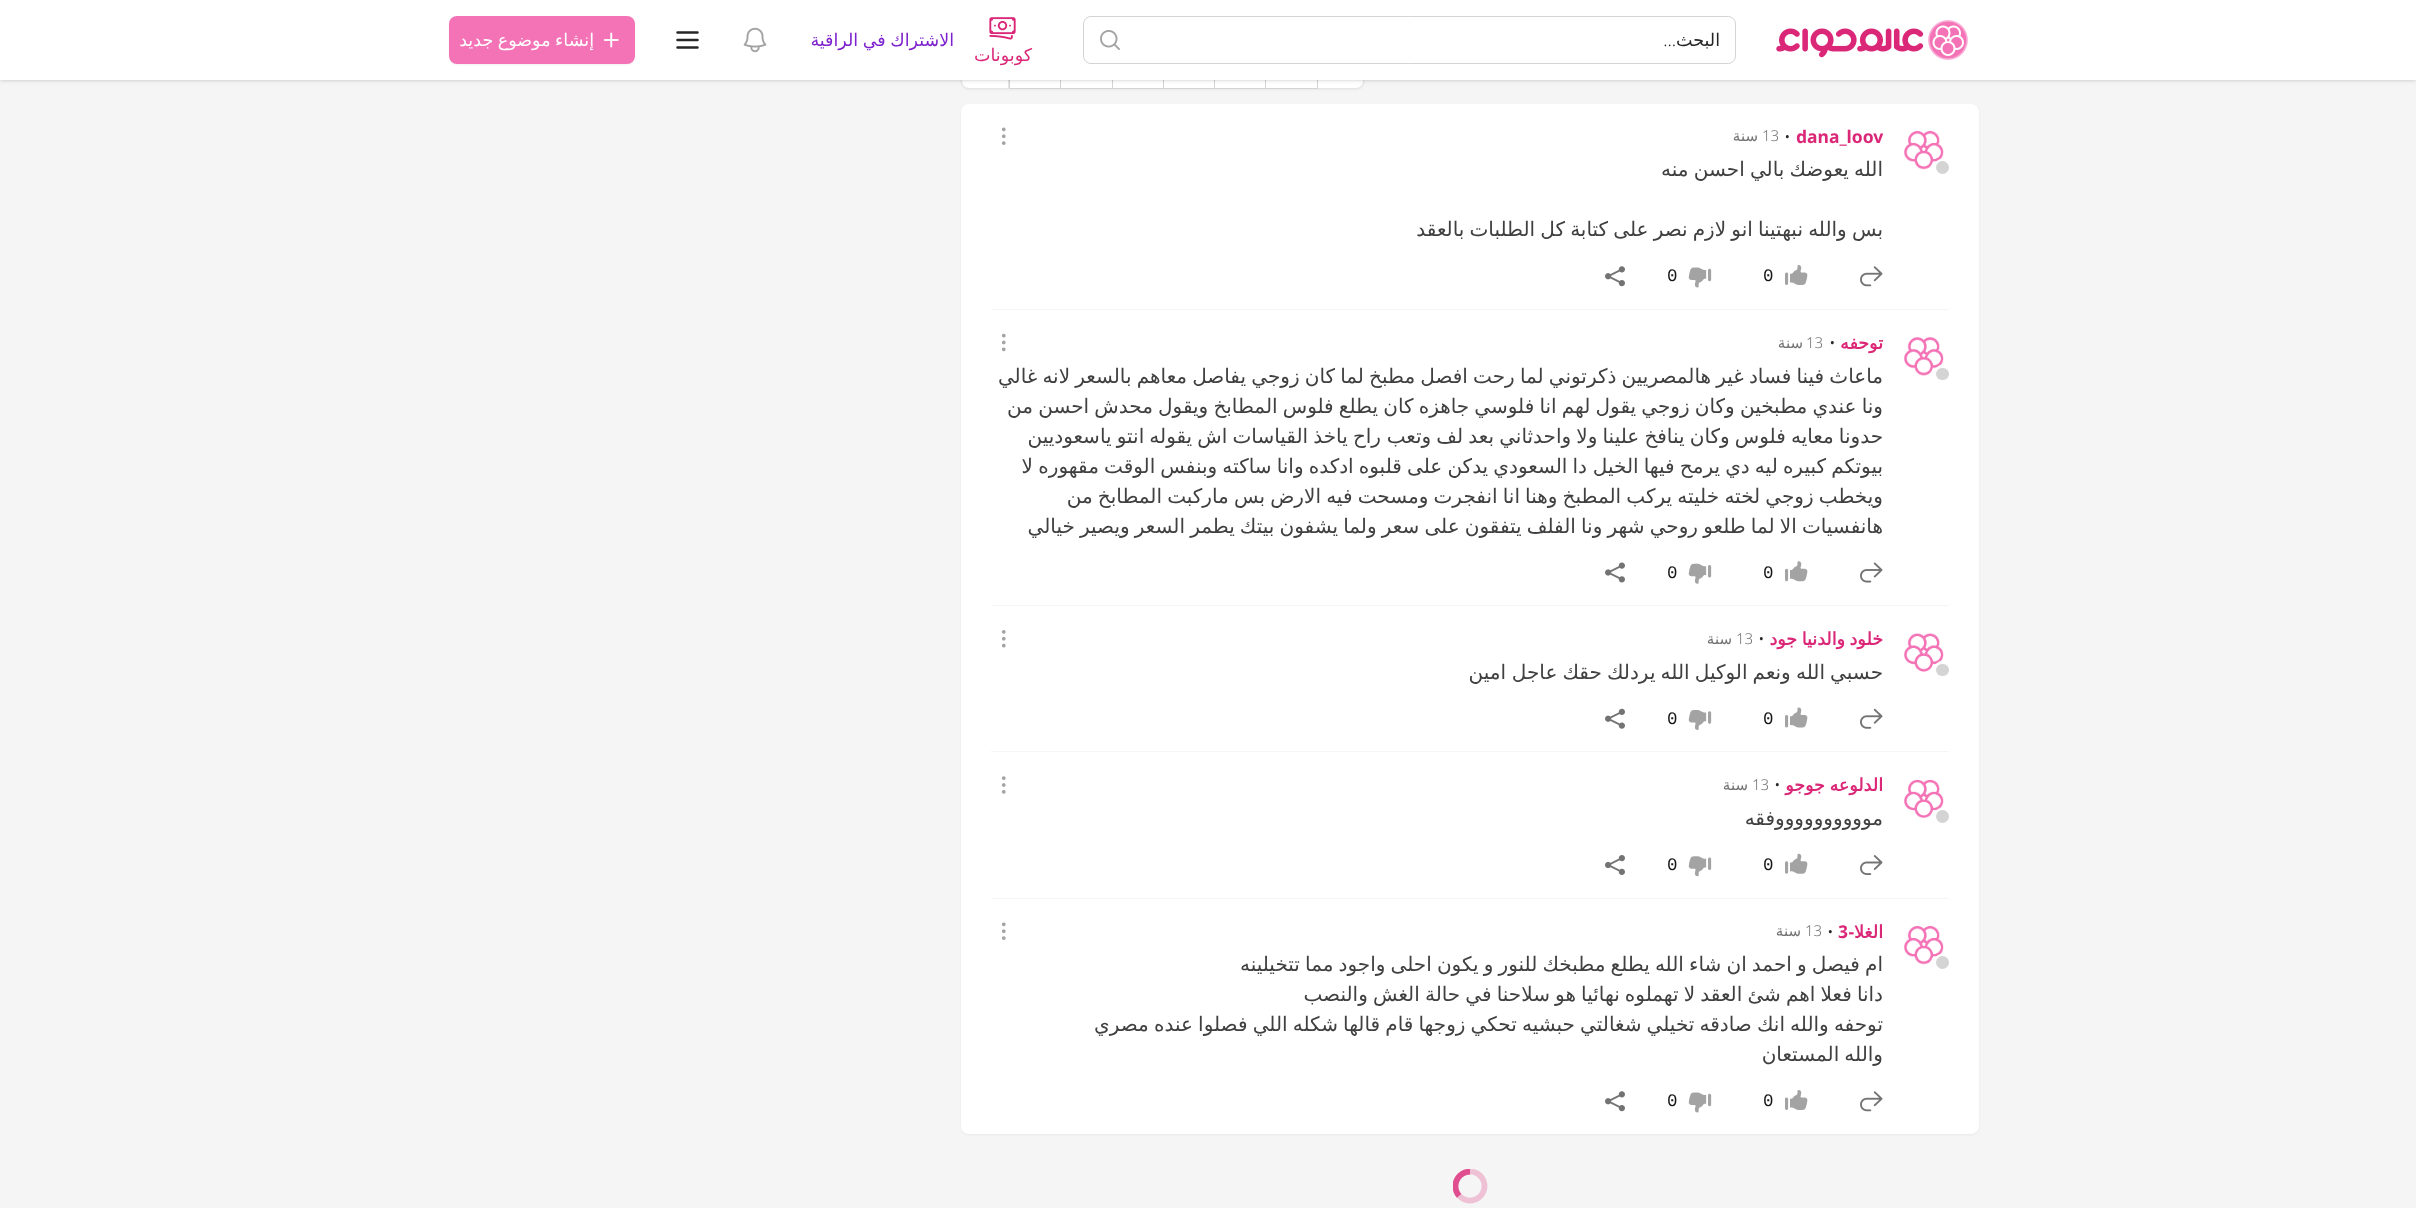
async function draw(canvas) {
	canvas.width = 2416;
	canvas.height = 1208;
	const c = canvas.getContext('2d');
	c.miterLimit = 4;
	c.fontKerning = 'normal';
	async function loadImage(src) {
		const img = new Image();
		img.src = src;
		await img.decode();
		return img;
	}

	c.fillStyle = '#f5f5f5';
	c.fillRect(0, 0, 2416, 1208);
	c.fillStyle = '#0000000d';
	c.filter = 'blur(1px)';
	c.beginPath();
	c.roundRect(961, 43, 403, 47, 8);
	c.fill();
	c.filter = 'none';
	c.fillStyle = '#fff';
	c.beginPath();
	c.roundRect(1316.5, 41.5, 47, 47, [0, 7.5, 7.5, 0]);
	c.fill();
	c.strokeStyle = '#e5e5e5';
	c.stroke();
	c.fillRect(1266, 80, 51, 8);
	c.strokeStyle = '#d4d4d4';
	c.strokeRect(1265.5, 41.5, 52, 47);
	c.fillRect(1215, 80, 50, 8);
	c.strokeRect(1214.5, 41.5, 51, 47);
	c.fillRect(1164, 80, 50, 8);
	c.strokeRect(1163.5, 41.5, 51, 47);
	c.fillRect(1113, 80, 50, 8);
	c.strokeRect(1111.5, 41.5, 52, 47);
	c.fillRect(1061, 80, 51, 8);
	c.strokeRect(1060.5, 41.5, 52, 47);
	c.fillRect(1010, 80, 50, 8);
	c.strokeRect(1009.5, 41.5, 51, 47);
	c.beginPath();
	c.roundRect(961.5, 41.5, 47, 47, [7.5, 0, 0, 7.5]);
	c.fill();
	c.strokeStyle = '#e5e5e5';
	c.stroke();
	c.fillStyle = '#0000001a';
	c.filter = 'blur(1px)';
	c.beginPath();
	c.rect(1, 3, 2414, 77);
	c.fill();
	c.filter = 'none';
	c.filter = 'blur(2px)';
	c.beginPath();
	c.rect(0, 1, 2416, 80);
	c.fill();
	c.filter = 'none';
	c.fillStyle = '#fff';
	c.fillRect(0, 0, 2416, 80);
	c.drawImage(await loadImage('img1.png'), 1776, 20, 192, 40);
	c.beginPath();
	c.roundRect(1083.5, 16.5, 652, 47, 7.5);
	c.strokeStyle = '#d4d4d4';
	c.stroke();
	c.direction = 'rtl';
	c.font = '17.5px DejaVu Sans';
	c.fillStyle = '#262626';
	c.fillText('البحث', 1720, 46);
	c.font = '300 17.5px Noto Sans';
	c.fillText('…', 1676, 46);
	c.drawImage(await loadImage('img2.png'), 1100, 30, 20, 20);
	c.wordSpacing = '-1px';
	c.font = '17.5px DejaVu Sans';
	c.fillStyle = '#7e22ce';
	c.fillText('الاشتراك في الراقية', 954, 46);
	c.drawImage(await loadImage('img3.png'), 743, 27, 24, 26);
	c.beginPath();
	c.moveTo(677.5, 32.5);
	c.lineTo(697.5, 32.5);
	c.moveTo(677.5, 40);
	c.lineTo(697.5, 40);
	c.moveTo(677.5, 47.5);
	c.lineTo(697.5, 47.5);
	c.strokeStyle = '#262626';
	c.lineWidth = 2.5;
	c.lineCap = 'round';
	c.lineJoin = 'round';
	c.stroke();
	c.fillStyle = '#0000000d';
	c.filter = 'blur(1px)';
	c.beginPath();
	c.roundRect(449, 18, 186, 47, 8);
	c.fill();
	c.filter = 'none';
	c.fillStyle = '#f472b6';
	c.beginPath();
	c.roundRect(449, 16, 186, 48, 8);
	c.fill();
	c.drawImage(await loadImage('img4.png'), 603, 32, 16, 16);
	c.fillStyle = '#fff';
	c.fillText('إنشاء موضوع جديد', 594, 46);
	c.drawImage(await loadImage('img5.png'), 989, 17, 27, 23);
	c.wordSpacing = '0px';
	c.fillStyle = '#db2777';
	c.fillText('كوبونات', 1032, 61);
	c.fillStyle = '#0000000d';
	c.filter = 'blur(1px)';
	c.beginPath();
	c.roundRect(961, 105, 1018, 1030, 8);
	c.fill();
	c.filter = 'none';
	c.fillStyle = '#fff';
	c.beginPath();
	c.roundRect(961, 104, 1018, 1030, 8);
	c.fill();
	c.drawImage(await loadImage('img6.png'), 1903, 130, 41, 40);
	c.beginPath();
	c.arc(1942.5, 167.5, 7, 0, 2 * Math.PI);
	c.strokeStyle = '#fff';
	c.lineWidth = 3;
	c.stroke();
	c.fillStyle = '#d4d4d4';
	c.beginPath();
	c.arc(1942.5, 167.5, 6.5, 0, 2 * Math.PI);
	c.fill();
	c.direction = 'ltr';
	c.font = 'bold 17.5px Noto Sans';
	c.fillStyle = '#db2777';
	c.fillText('dana_loov', 1796, 143);
	c.font = '300 17.5px Noto Sans';
	c.fillStyle = '#262626';
	c.fillText('•', 1784, 143);
	c.font = '300 15px Noto Sans';
	c.fillStyle = '#737373';
	c.fillText('13', 1762, 141);
	c.direction = 'rtl';
	c.font = '15px DejaVu Sans';
	c.fillText('سنة', 1758, 141);
	c.drawImage(await loadImage('img7.png'), 1001, 127, 5, 18);
	c.wordSpacing = '-1.2px';
	c.font = '20px DejaVu Sans';
	c.fillStyle = '#404040';
	c.fillText('الله يعوضك بالي احسن منه', 1883, 176);
	c.fillText('بس والله نبهتينا انو لازم نصر على كتابة كل الطلبات بالعقد', 1883, 236);
	c.drawImage(await loadImage('img8.png'), 1860, 266, 23, 21);
	c.drawImage(await loadImage('img9.png'), 1785, 265, 23, 20);
	c.wordSpacing = '0px';
	c.direction = 'ltr';
	c.font = '17.5px Liberation Mono';
	c.fillStyle = '#171717';
	c.fillText('0', 1763, 281);
	c.drawImage(await loadImage('img10.png'), 1688, 267, 24, 21);
	c.fillText('0', 1667, 281);
	c.drawImage(await loadImage('img11.png'), 1605, 266, 20, 21);
	c.fillStyle = '#f5f5f5';
	c.fillRect(991, 309, 958, 1);
	c.drawImage(await loadImage('img12.png'), 1903, 336, 41, 40);
	c.beginPath();
	c.roundRect(1935.5, 366.5, 14, 15, 7);
	c.lineJoin = 'miter';
	c.stroke();
	c.fillStyle = '#d4d4d4';
	c.beginPath();
	c.roundRect(1936, 368, 13, 12, 6);
	c.fill();
	c.direction = 'rtl';
	c.font = 'bold 17.5px DejaVu Sans';
	c.fillStyle = '#db2777';
	c.fillText('توحفه', 1883, 349);
	c.direction = 'ltr';
	c.font = '300 17.5px Noto Sans';
	c.fillStyle = '#262626';
	c.fillText('•', 1829, 349);
	c.font = '300 15px Noto Sans';
	c.fillStyle = '#737373';
	c.fillText('13', 1806, 348);
	c.direction = 'rtl';
	c.font = '15px DejaVu Sans';
	c.fillText('سنة', 1803, 348);
	c.drawImage(await loadImage('img13.png'), 1001, 333, 5, 19);
	c.wordSpacing = '-1.2px';
	c.font = '20px DejaVu Sans';
	c.fillStyle = '#404040';
	for (const [text, x, y] of [
		['ماعاث فينا فساد غير هالمصريين ذكرتوني لما رحت افصل مطبخ لما كان زوجي يفاصل معاهم بالسعر لانه غالي', 1883, 383],
		['ونا عندي مطبخين وكان زوجي يقول لهم انا فلوسي جاهزه كان يطلع فلوس المطابخ ويقول محدش احسن من', 1883, 413],
		['حدونا معايه فلوس وكان ينافخ علينا ولا واحدثاني بعد لف وتعب', 1883, 443],
		['راح ياخذ القياسات اش يقوله انتو ياسعوديين', 1381, 443],
		['بيوتكم كبيره ليه دي يرمح فيها الخيل', 1883, 473],
		['دا السعودي يدكن على قلبوه ادكده وانا ساكته وبنفس الوقت مقهوره', 1587, 473],
	]) {
		c.fillText(text, x, y);
	}
	c.wordSpacing = '0px';
	c.fillText('لا', 1033, 473);
	c.wordSpacing = '-1.2px';
	for (const [text, x, y] of [
		['ويخطب زوجي لخته', 1883, 503],
		['خليته يركب المطبخ وهنا انا انفجرت ومسحت فيه الارض بس ماركبت المطابخ من', 1719, 503],
		['هانفسيات الا لما طلعو روحي شهر ونا الفلف يتفقون على سعر ولما يشفون بيتك يطمر السعر ويصير خيالي', 1883, 533],
	]) {
		c.fillText(text, x, y);
	}
	c.drawImage(await loadImage('img14.png'), 1860, 562, 23, 21);
	c.drawImage(await loadImage('img15.png'), 1785, 561, 23, 21);
	c.wordSpacing = '0px';
	c.direction = 'ltr';
	c.font = '17.5px Liberation Mono';
	c.fillStyle = '#171717';
	c.fillText('0', 1763, 578);
	c.drawImage(await loadImage('img16.png'), 1688, 563, 24, 21);
	c.fillText('0', 1667, 578);
	c.drawImage(await loadImage('img17.png'), 1605, 562, 20, 21);
	c.fillStyle = '#f5f5f5';
	c.fillRect(991, 605, 958, 1);
	c.drawImage(await loadImage('img18.png'), 1903, 633, 41, 39);
	c.beginPath();
	c.roundRect(1935.5, 662.5, 14, 15, 7);
	c.stroke();
	c.fillStyle = '#d4d4d4';
	c.beginPath();
	c.roundRect(1936, 664, 13, 12, 6);
	c.fill();
	c.wordSpacing = '-1px';
	c.direction = 'rtl';
	c.font = 'bold 17.5px DejaVu Sans';
	c.fillStyle = '#db2777';
	c.fillText('خلود والدنيا جود', 1883, 645);
	c.wordSpacing = '0px';
	c.direction = 'ltr';
	c.font = '300 17.5px Noto Sans';
	c.fillStyle = '#262626';
	c.fillText('•', 1758, 645);
	c.font = '300 15px Noto Sans';
	c.fillStyle = '#737373';
	c.fillText('13', 1736, 644);
	c.direction = 'rtl';
	c.font = '15px DejaVu Sans';
	c.fillText('سنة', 1732, 644);
	c.drawImage(await loadImage('img19.png'), 1001, 630, 5, 18);
	c.wordSpacing = '-1.2px';
	c.font = '20px DejaVu Sans';
	c.fillStyle = '#404040';
	c.fillText('حسبي الله ونعم الوكيل الله يردلك حقك عاجل', 1883, 679);
	c.wordSpacing = '0px';
	c.fillText('امين', 1506, 679);
	c.drawImage(await loadImage('img20.png'), 1860, 708, 23, 21);
	c.drawImage(await loadImage('img21.png'), 1785, 707, 23, 21);
	c.direction = 'ltr';
	c.font = '17.5px Liberation Mono';
	c.fillStyle = '#171717';
	c.fillText('0', 1763, 724);
	c.drawImage(await loadImage('img22.png'), 1688, 710, 24, 20);
	c.fillText('0', 1667, 724);
	c.drawImage(await loadImage('img23.png'), 1605, 708, 20, 21);
	c.fillStyle = '#f5f5f5';
	c.fillRect(991, 751, 958, 1);
	c.drawImage(await loadImage('img24.png'), 1903, 779, 41, 39);
	c.beginPath();
	c.arc(1942.5, 816.5, 7, 0, 2 * Math.PI);
	c.stroke();
	c.fillStyle = '#d4d4d4';
	c.beginPath();
	c.arc(1942.5, 816.5, 6.5, 0, 2 * Math.PI);
	c.fill();
	c.wordSpacing = '-1px';
	c.direction = 'rtl';
	c.font = 'bold 17.5px DejaVu Sans';
	c.fillStyle = '#db2777';
	c.fillText('الدلوعه جوجو', 1883, 791);
	c.wordSpacing = '0px';
	c.direction = 'ltr';
	c.font = '300 17.5px Noto Sans';
	c.fillStyle = '#262626';
	c.fillText('•', 1774, 791);
	c.font = '300 15px Noto Sans';
	c.fillStyle = '#737373';
	c.fillText('13', 1752, 790);
	c.direction = 'rtl';
	c.font = '15px DejaVu Sans';
	c.fillText('سنة', 1748, 790);
	c.drawImage(await loadImage('img25.png'), 1001, 776, 5, 18);
	c.font = '20px DejaVu Sans';
	c.fillStyle = '#404040';
	c.fillText('مووووووووووفقه', 1883, 825);
	c.drawImage(await loadImage('img26.png'), 1860, 855, 23, 20);
	c.drawImage(await loadImage('img27.png'), 1785, 853, 23, 21);
	c.direction = 'ltr';
	c.font = '17.5px Liberation Mono';
	c.fillStyle = '#171717';
	c.fillText('0', 1763, 870);
	c.drawImage(await loadImage('img28.png'), 1688, 856, 24, 21);
	c.fillText('0', 1667, 870);
	c.drawImage(await loadImage('img29.png'), 1605, 855, 20, 20);
	c.fillStyle = '#f5f5f5';
	c.fillRect(991, 898, 958, 1);
	c.drawImage(await loadImage('img6.png'), 1903, 925, 41, 40);
	c.beginPath();
	c.arc(1942.5, 962.5, 7, 0, 2 * Math.PI);
	c.stroke();
	c.fillStyle = '#d4d4d4';
	c.beginPath();
	c.arc(1942.5, 962.5, 6.5, 0, 2 * Math.PI);
	c.fill();
	c.direction = 'rtl';
	c.font = 'bold 17.5px DejaVu Sans';
	c.fillStyle = '#db2777';
	c.fillText('الغلا', 1883, 938);
	c.font = 'bold 17.5px Noto Sans';
	c.fillText('-', 1854, 938);
	c.direction = 'ltr';
	c.fillText('3', 1838, 938);
	c.font = '300 17.5px Noto Sans';
	c.fillStyle = '#262626';
	c.fillText('•', 1827, 938);
	c.font = '300 15px Noto Sans';
	c.fillStyle = '#737373';
	c.fillText('13', 1805, 936);
	c.direction = 'rtl';
	c.font = '15px DejaVu Sans';
	c.fillText('سنة', 1801, 936);
	c.drawImage(await loadImage('img7.png'), 1001, 922, 5, 18);
	c.wordSpacing = '-1.2px';
	c.font = '20px DejaVu Sans';
	c.fillStyle = '#404040';
	for (const [text, x, y] of [
		['ام فيصل و احمد ان شاء الله يطلع مطبخك للنور و يكون احلى واجود مما تتخيلينه', 1883, 971],
		['دانا فعلا اهم شئ العقد لا تهملوه نهائيا هو سلاحنا في حالة الغش والنصب', 1883, 1001],
		['توحفه والله انك صادقه تخيلي شغالتي حبشيه تحكي زوجها قام قالها شكله اللي فصلوا عنده مصري', 1883, 1031],
		['والله المستعان', 1883, 1061],
	]) {
		c.fillText(text, x, y);
	}
	c.drawImage(await loadImage('img8.png'), 1860, 1091, 23, 21);
	c.drawImage(await loadImage('img9.png'), 1785, 1090, 23, 20);
	c.wordSpacing = '0px';
	c.direction = 'ltr';
	c.font = '17.5px Liberation Mono';
	c.fillStyle = '#171717';
	c.fillText('0', 1763, 1106);
	c.drawImage(await loadImage('img10.png'), 1688, 1092, 24, 21);
	c.fillText('0', 1667, 1106);
	c.drawImage(await loadImage('img11.png'), 1605, 1091, 20, 21);
	c.drawImage(await loadImage('img30.png'), 1453, 1169, 35, 35);
}

draw(document.querySelector('canvas'));
